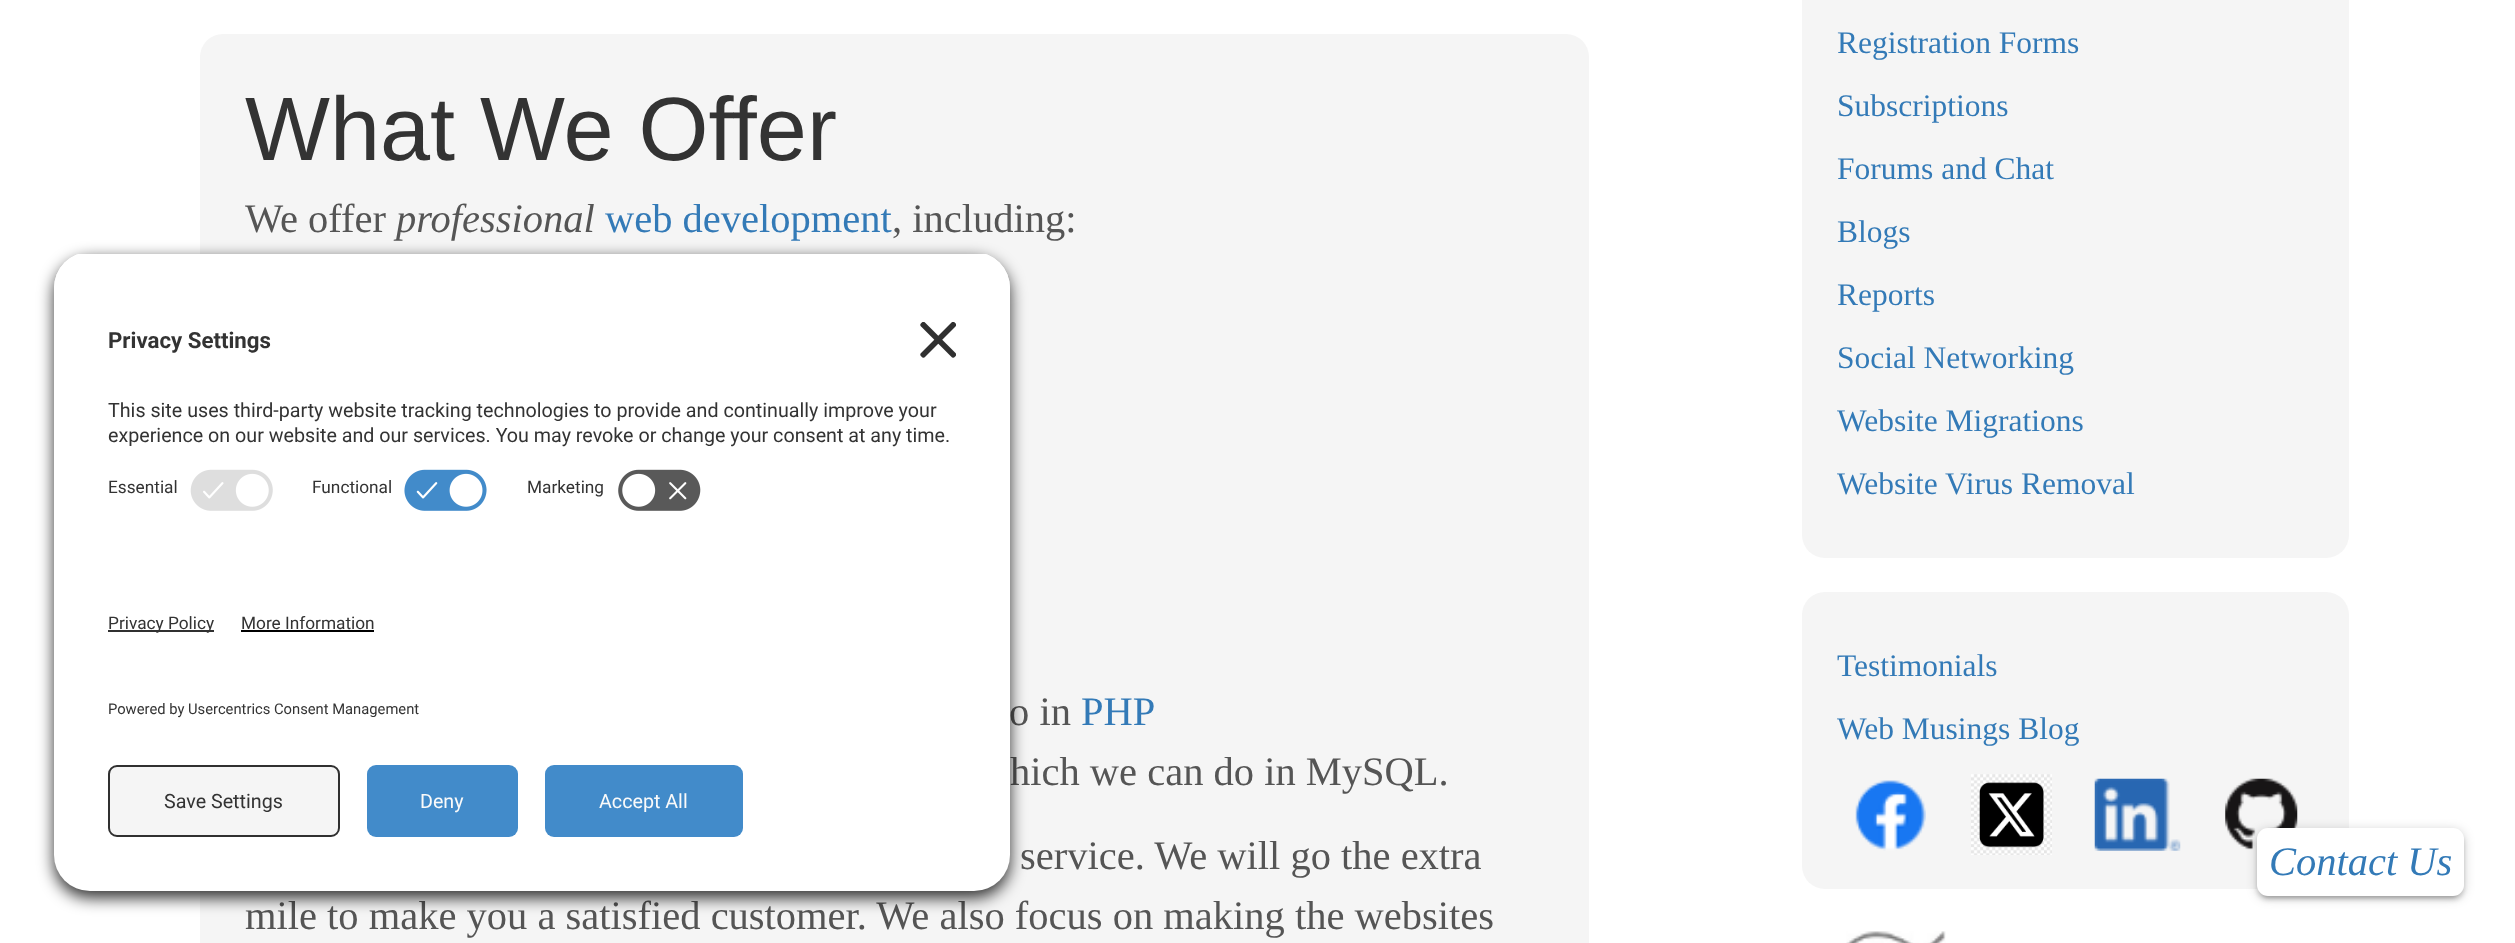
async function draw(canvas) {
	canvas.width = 2515;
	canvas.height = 943;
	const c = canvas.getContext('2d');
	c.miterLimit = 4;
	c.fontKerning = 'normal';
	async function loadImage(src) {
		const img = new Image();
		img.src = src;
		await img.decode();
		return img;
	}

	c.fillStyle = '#fff';
	c.fillRect(0, 0, 2515, 943);
	c.fillStyle = '#f5f5f5';
	c.beginPath();
	c.roundRect(1802, -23, 547, 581, 23);
	c.fill();
	c.font = '31.5px Liberation Serif';
	c.fillStyle = '#337ab7';
	for (const [text, x, y] of [
		['Registration Forms', 1837, 53],
		['Subscriptions', 1837, 116],
		['Forums and Chat', 1837, 179],
		['Blogs', 1837, 242],
		['Reports', 1837, 305],
		['Social Networking', 1837, 368],
		['Website Migrations', 1837, 431],
		['Website Virus Removal', 1837, 494],
	]) {
		c.fillText(text, x, y);
	}
	c.fillStyle = '#f5f5f5';
	c.beginPath();
	c.roundRect(1802, 592, 547, 297, 23);
	c.fill();
	c.fillStyle = '#337ab7';
	c.fillText('Testimonials', 1837, 676);
	c.fillText('Web Musings Blog', 1837, 739);
	c.drawImage(await loadImage('img1.png'), 1855, 780, 71, 71);
	c.drawImage(await loadImage('img2.png'), 1971, 774, 81, 81);
	c.drawImage(await loadImage('img3.png'), 2094, 778, 87, 73);
	c.drawImage(await loadImage('img4.png'), 2225, 778, 73, 72);
	c.drawImage(await loadImage('img5.png'), 1846, 931, 100, 12);
	c.fillStyle = '#f5f5f5';
	c.beginPath();
	c.roundRect(200, 34, 1389, 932, 23);
	c.fill();
	c.font = '90px Liberation Sans';
	c.fillStyle = '#333';
	c.fillText('What We Offer', 245, 160);
	c.font = '40.5px Liberation Serif';
	c.fillStyle = '#555';
	c.fillText('We offer', 245, 232);
	c.font = 'italic 40.5px Liberation Serif';
	c.fillText('professional', 396, 232);
	c.font = '40.5px Liberation Serif';
	c.fillStyle = '#337ab7';
	c.fillText('web development', 605, 232);
	c.fillStyle = '#555';
	c.fillText(', including:', 892, 232);
	c.fillText('o in', 1009, 725);
	c.fillStyle = '#337ab7';
	c.fillText('PHP', 1081, 725);
	c.fillStyle = '#555';
	for (const [text, x, y] of [
		['hich we can do in MySQL.', 1010, 785],
		['service. We will go the extra', 1020, 869],
		['mile to make you a satisfied customer. We also focus on making the websites', 245, 929],
	]) {
		c.fillText(text, x, y);
	}
	c.fillStyle = '#00000033';
	c.filter = 'blur(5.5px)';
	c.beginPath();
	c.roundRect(2257, 830, 207, 68, 11);
	c.fill();
	c.filter = 'none';
	c.fillStyle = '#0000001f';
	c.filter = 'blur(1px)';
	c.beginPath();
	c.roundRect(2261, 839, 198, 59, 7);
	c.fill();
	c.filter = 'none';
	c.fillStyle = '#00000024';
	c.filter = 'blur(2px)';
	c.beginPath();
	c.roundRect(2257, 833, 207, 67, 11);
	c.fill();
	c.filter = 'none';
	c.fillStyle = '#fff';
	c.beginPath();
	c.roundRect(2257, 828, 207, 68, 11);
	c.fill();
	c.font = 'italic 40.5px Liberation Serif';
	c.fillStyle = '#337ab7';
	c.fillText('Contact Us', 2269, 875);
	c.fillStyle = '#000000cc';
	c.filter = 'blur(8px)';
	c.beginPath();
	c.roundRect(54, 259, 956, 639, 36);
	c.fill();
	c.filter = 'none';
	c.save();
	c.beginPath();
	c.roundRect(54, 252, 956, 295, [36, 36, 0, 0]);
	c.clip();
	c.fillStyle = '#fff';
	c.fillRect(54, 254, 956, 293);
	c.fillRect(54, 254, 956, 203);
	c.restore();
	c.font = 'bold 22.25px Roboto';
	c.fillStyle = '#333';
	c.fillText('Privacy Settings', 108, 348);
	c.drawImage(await loadImage('img6.png'), 920, 322, 36, 36);
	c.font = '19.7px Roboto';
	c.fillText('This site uses third-party website tracking technologies to provide and continually improve your', 108, 417);
	c.fillText('experience on our website and our services. You may revoke or change your consent at any time.', 108, 442);
	c.font = '17.25px Roboto';
	c.fillText('Essential', 108, 493);
	c.drawImage(await loadImage('img7.png'), 190, 469, 83, 42);
	c.fillText('Functional', 312, 493);
	c.drawImage(await loadImage('img8.png'), 404, 469, 83, 42);
	c.fillText('Marketing', 527, 493);
	c.drawImage(await loadImage('img9.png'), 618, 469, 83, 42);
	c.fillStyle = '#fff';
	c.beginPath();
	c.roundRect(54, 547, 956, 344, [0, 0, 36, 36]);
	c.fill();
	c.fillStyle = '#303030';
	c.fillRect(108, 630, 106, 2);
	c.fillStyle = '#333';
	c.fillText('Privacy Policy', 108, 629);
	c.fillText('More Information', 241, 629);
	c.fillStyle = '#000';
	c.fillRect(241, 630, 133, 2);
	c.font = '14.75px Roboto';
	c.fillStyle = '#333';
	c.fillText('Powered by Usercentrics Consent Management', 108, 714);
	c.fillStyle = '#f5f5f5';
	c.beginPath();
	c.roundRect(109, 766, 230, 70, 8);
	c.fill();
	c.strokeStyle = '#303030';
	c.lineWidth = 2;
	c.stroke();
	c.font = '19.7px Roboto';
	c.fillStyle = '#333';
	c.fillText('Save Settings', 164, 808);
	c.fillStyle = '#428bca';
	c.beginPath();
	c.roundRect(367, 765, 151, 72, 9);
	c.fill();
	c.fillStyle = '#fafafa';
	c.fillText('Deny', 420, 808);
	c.fillStyle = '#428bca';
	c.beginPath();
	c.roundRect(545, 765, 198, 72, 9);
	c.fill();
	c.fillStyle = '#fafafa';
	c.fillText('Accept All', 599, 808);
}

draw(document.querySelector('canvas'));
